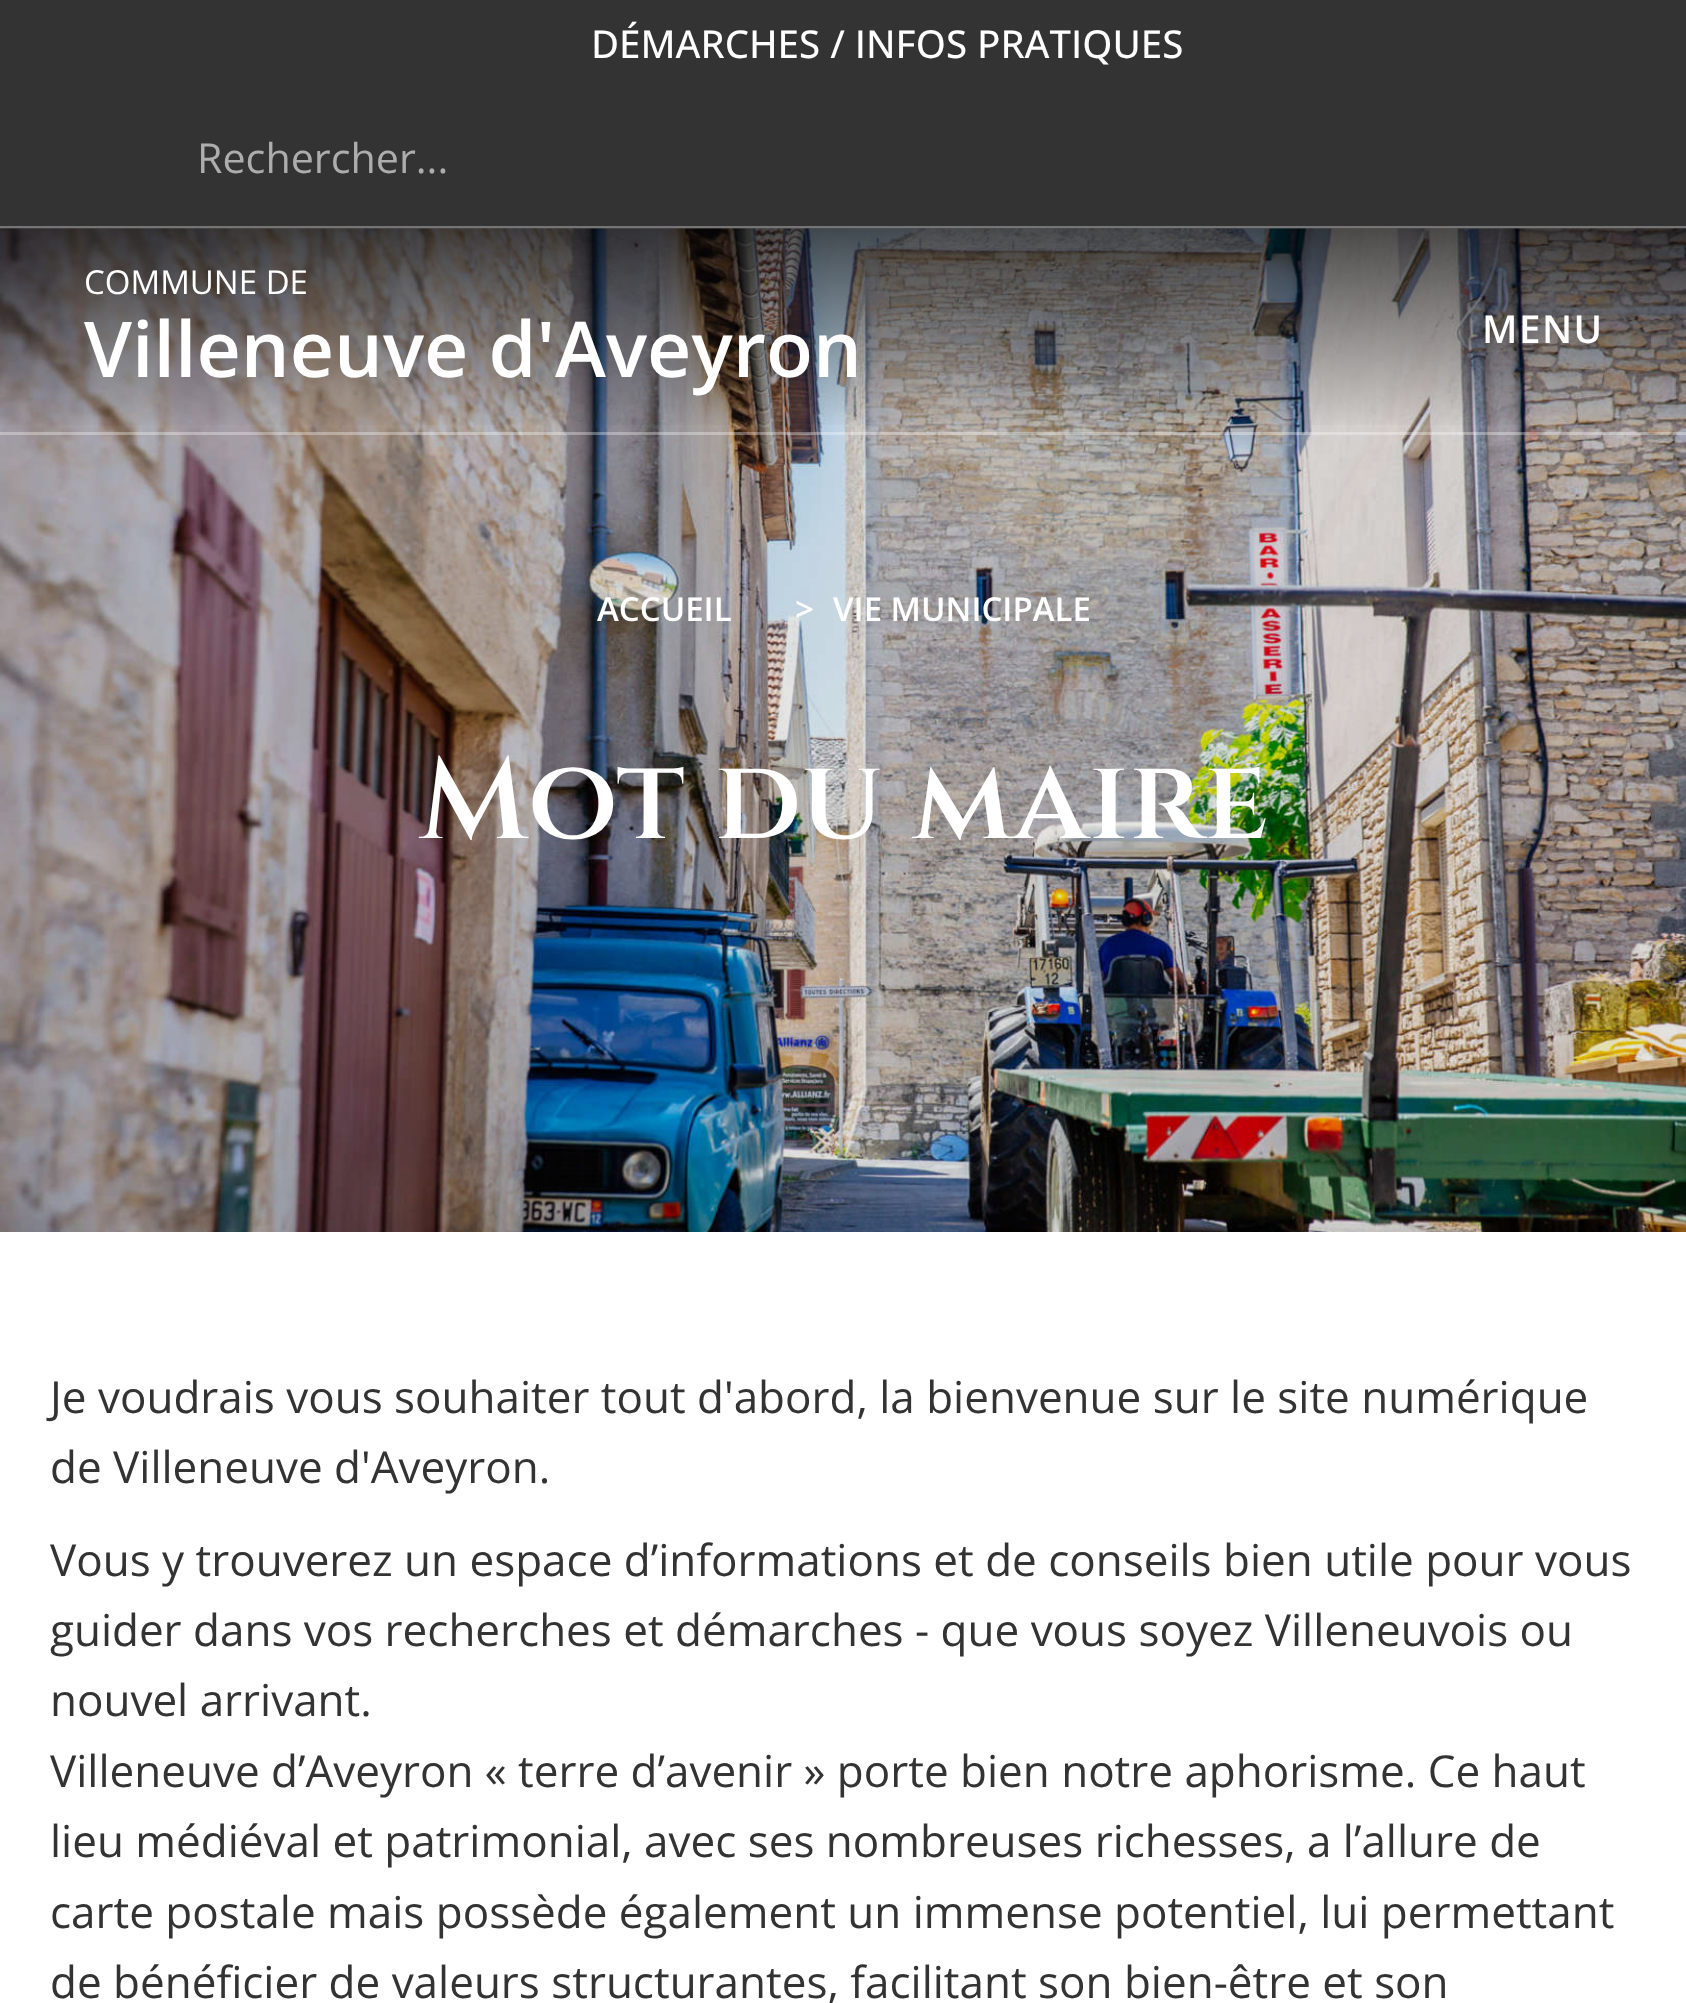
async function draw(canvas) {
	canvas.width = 1686;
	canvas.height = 2003;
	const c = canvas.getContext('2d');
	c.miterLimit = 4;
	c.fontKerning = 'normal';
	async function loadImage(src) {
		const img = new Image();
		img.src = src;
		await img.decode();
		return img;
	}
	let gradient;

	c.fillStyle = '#fff';
	c.fillRect(0, 0, 1686, 2003);
	c.fillStyle = '#333';
	c.fillRect(0, 0, 1686, 228);
	c.drawImage(await loadImage('img1.png'), 0, 228, 1686, 1004);
	c.fillStyle = '#f1f1f159';
	c.fillRect(0, 226, 1686, 3);
	c.font = '500 38.5px Open Sans';
	c.fillStyle = '#fff';
	c.fillText('DÉMARCHES / INFOS PRATIQUES', 591, 58);
	c.font = '41.25px Open Sans';
	c.fillStyle = '#adadad';
	c.fillText('Rechercher...', 197, 173);
	c.fillStyle = '#ffffff52';
	c.fillRect(0, 432, 1686, 3);
	gradient = c.createLinearGradient(844, 228, 844, 432);
	gradient.addColorStop(0, '#000000a6');
	gradient.addColorStop(1, '#00000000');
	c.fillStyle = gradient;
	c.fillRect(0, 228, 1686, 197);
	c.font = '33px Open Sans';
	c.fillStyle = '#fff';
	c.fillText('COMMUNE DE', 84, 294);
	c.font = '600 77px Open Sans';
	c.fillText('Villeneuve d\'Aveyron', 84, 377);
	c.letterSpacing = '1.5px';
	c.font = '600 38.5px Open Sans';
	c.fillText('MENU', 1482, 343);
	c.letterSpacing = '0px';
	c.font = '600 33px Open Sans';
	for (const [text, x, y] of [
		['ACCUEIL', 597, 621],
		['>', 795, 621],
		['VIE MUNICIPALE', 833, 621],
	]) {
		c.fillText(text, x, y);
	}
	c.letterSpacing = '0.5px';
	c.font = '600 115.5px Cinzel';
	c.fillText('Mot du maire', 419, 838);
	c.letterSpacing = '0px';
	c.font = '44px Open Sans';
	c.fillStyle = '#333';
	for (const [text, x, y] of [
		['Je voudrais vous souhaiter tout d\'abord, la bienvenue sur le site numérique', 50, 1413],
		['de Villeneuve d\'Aveyron.', 50, 1483],
		['Vous y trouverez un espace d’informations et de conseils bien utile pour vous', 50, 1576],
		['guider dans vos recherches et démarches - que vous soyez Villeneuvois ou', 50, 1646],
		['nouvel arrivant.', 50, 1716],
		['Villeneuve d’Aveyron « terre d’avenir » porte bien notre aphorisme. Ce haut', 50, 1787],
		['lieu médiéval et patrimonial, avec ses nombreuses richesses, a l’allure de', 50, 1857],
		['carte postale mais possède également un immense potentiel, lui permettant', 50, 1928],
		['de bénéficier de valeurs structurantes, facilitant son bien-être et son', 50, 1998],
	]) {
		c.fillText(text, x, y);
	}
}

draw(document.querySelector('canvas'));
